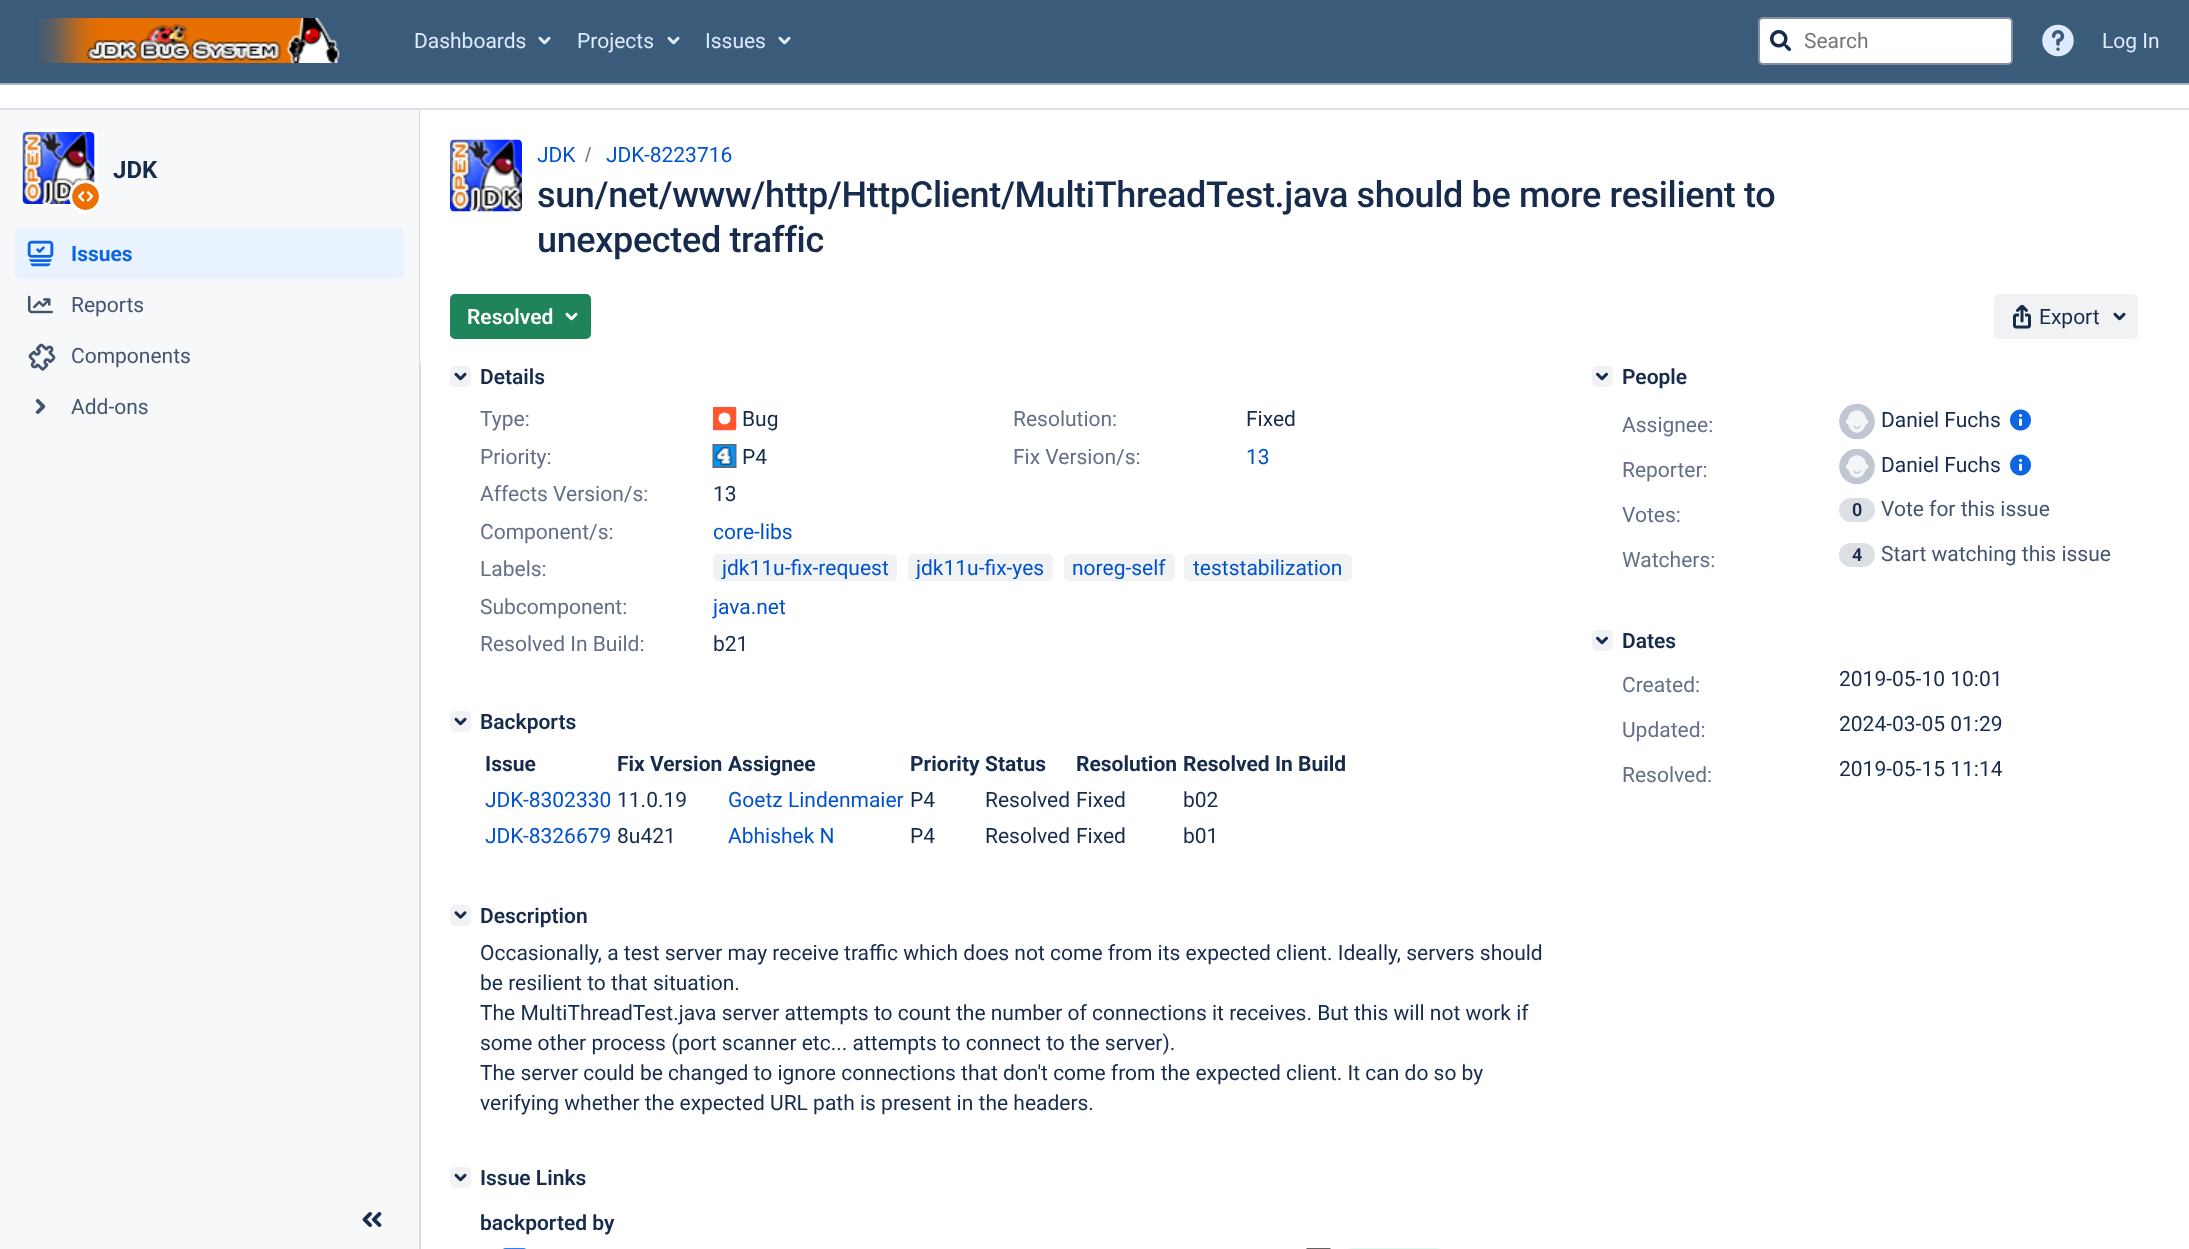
async function draw(canvas) {
	canvas.width = 2189;
	canvas.height = 1249;
	const c = canvas.getContext('2d');
	c.miterLimit = 4;
	c.fontKerning = 'normal';
	async function loadImage(src) {
		const img = new Image();
		img.src = src;
		await img.decode();
		return img;
	}

	c.fillStyle = '#fff';
	c.fillRect(0, 0, 2189, 1249);
	for (const [x, y, w, h, color] of [
		[420, 362, 1, 887, '#dddfe5'],
		[0, 0, 2189, 83, '#3b5b7b'],
		[0, 83, 2189, 2, '#a4b3c4'],
	]) {
		c.fillStyle = color;
		c.fillRect(x, y, w, h);
	}
	c.drawImage(await loadImage('img1.png'), 38, 18, 302, 45);
	c.font = '21px Roboto';
	c.fillStyle = '#deebff';
	c.fillText('Dashboards', 414, 48);
	c.drawImage(await loadImage('img2.png'), 538, 36, 13, 9);
	c.fillText('Projects', 577, 48);
	c.drawImage(await loadImage('img2.png'), 667, 36, 13, 9);
	c.fillText('Issues', 705, 48);
	c.drawImage(await loadImage('img2.png'), 778, 36, 13, 9);
	c.fillStyle = '#fff';
	c.beginPath();
	c.roundRect(1759, 18, 253, 46, 4);
	c.fill();
	c.strokeStyle = '#8590a2';
	c.lineWidth = 2;
	c.stroke();
	c.drawImage(await loadImage('img3.png'), 1770, 30, 21, 21);
	c.fillStyle = '#757575';
	c.fillText('Search', 1804, 48);
	c.drawImage(await loadImage('img4.png'), 2042, 24, 32, 33);
	c.fillStyle = '#deebff';
	c.fillText('Log In', 2102, 48);
	for (const [x, y, w, h, color] of [
		[0, 108, 2189, 2, '#dde0e5'],
		[0, 110, 419, 1139, '#f7f8f9'],
		[419, 110, 1, 1139, '#d6d9df'],
	]) {
		c.fillStyle = color;
		c.fillRect(x, y, w, h);
	}
	c.beginPath();
	c.roundRect(21.5, 130.5, 75, 75, 6.5);
	c.strokeStyle = '#fff';
	c.lineWidth = 3;
	c.stroke();
	c.drawImage(await loadImage('img5.png'), 22, 132, 73, 72);
	c.fillStyle = '#fff';
	c.beginPath();
	c.arc(85.5, 196.5, 16.5, 0, 2 * Math.PI);
	c.fill();
	c.drawImage(await loadImage('img6.png'), 72, 183, 27, 27);
	c.font = 'bold 24px Roboto';
	c.fillStyle = '#172b4d';
	c.fillText('JDK', 113, 178);
	c.fillStyle = '#e9f2ff';
	c.beginPath();
	c.roundRect(15, 228, 389, 51, 5);
	c.fill();
	c.drawImage(await loadImage('img7.png'), 27, 240, 27, 27);
	c.font = 'bold 21px Roboto';
	c.fillStyle = '#0c66e4';
	c.fillText('Issues', 71, 261);
	c.drawImage(await loadImage('img8.png'), 27, 295, 26, 19);
	c.font = '21px Roboto';
	c.fillStyle = '#44546f';
	c.fillText('Reports', 71, 312);
	c.drawImage(await loadImage('img9.png'), 28, 343, 28, 28);
	c.fillText('Components', 71, 363);
	c.drawImage(await loadImage('img10.png'), 35, 399, 11, 15);
	c.fillText('Add-ons', 71, 414);
	c.drawImage(await loadImage('img11.png'), 362, 1212, 20, 15);
	c.drawImage(await loadImage('img12.png'), 450, 139, 72, 73);
	c.fillStyle = '#0052cc';
	c.fillText('JDK', 537, 162);
	c.fillStyle = '#707070';
	c.beginPath();
	c.moveTo(586.5, 162);
	c.lineTo(591, 147);
	c.lineTo(589.5, 147);
	c.lineTo(585, 162);
	c.closePath();
	c.fill();
	c.fillStyle = '#0052cc';
	c.fillText('JDK-8223716', 606, 162);
	c.letterSpacing = '-0.35px';
	c.font = '500 36px Roboto';
	c.fillStyle = '#172b4d';
	c.fillText('sun/net/www/http/HttpClient/MultiThreadTest.java should be more resilient to', 537, 207);
	c.fillText('unexpected traffic', 537, 252);
	c.fillStyle = '#1f845a';
	c.beginPath();
	c.roundRect(451, 295, 139, 43, 4);
	c.fill();
	c.strokeStyle = '#1f845a';
	c.lineWidth = 2;
	c.stroke();
	c.letterSpacing = '0px';
	c.font = '600 21px Roboto';
	c.fillStyle = '#fff';
	c.fillText('Resolved', 467, 324);
	c.drawImage(await loadImage('img13.png'), 565, 312, 13, 9);
	c.fillStyle = '#f0f2f4';
	c.beginPath();
	c.roundRect(1994, 294, 144, 45, 5);
	c.fill();
	c.drawImage(await loadImage('img14.png'), 2013, 305, 18, 24);
	c.font = '21px Roboto';
	c.fillStyle = '#172b4d';
	c.fillText('Export', 2039, 324);
	c.drawImage(await loadImage('img15.png'), 2113, 312, 13, 9);
	c.fillStyle = '#f0f2f4';
	c.beginPath();
	c.roundRect(450, 366, 21, 21, 5);
	c.fill();
	c.drawImage(await loadImage('img16.png'), 454, 372, 13, 9);
	c.font = '600 21px Roboto';
	c.fillStyle = '#172b4d';
	c.fillText('Details', 480, 384);
	c.font = '21px Roboto';
	c.fillStyle = '#626f86';
	c.fillText('Type:', 480, 426);
	c.drawImage(await loadImage('img17.png'), 713, 407, 24, 24);
	c.fillStyle = '#172b4d';
	c.fillText('Bug', 742, 426);
	c.fillStyle = '#626f86';
	c.fillText('Resolution:', 1013, 426);
	c.fillStyle = '#172b4d';
	c.fillText('Fixed', 1246, 426);
	c.fillStyle = '#626f86';
	c.fillText('Priority:', 480, 464);
	c.drawImage(await loadImage('img18.png'), 712, 444, 25, 24);
	c.fillStyle = '#172b4d';
	c.fillText('P4', 742, 464);
	c.fillStyle = '#626f86';
	c.fillText('Fix Version/s:', 1013, 464);
	c.fillStyle = '#0052cc';
	c.fillText('13', 1246, 464);
	c.fillStyle = '#626f86';
	c.fillText('Affects Version/s:', 480, 501);
	c.fillStyle = '#172b4d';
	c.fillText('13', 713, 501);
	c.fillStyle = '#626f86';
	c.fillText('Component/s:', 480, 539);
	c.fillStyle = '#0052cc';
	c.fillText('core-libs', 713, 539);
	c.fillStyle = '#626f86';
	c.fillText('Labels:', 480, 576);
	c.fillStyle = '#f0f2f4';
	c.beginPath();
	c.roundRect(713, 554, 184, 27, 5);
	c.fill();
	c.save();
	c.beginPath();
	c.roundRect(714, 555, 182, 24, 3);
	c.clip();
	c.fillStyle = '#0052cc';
	c.fillText('jdk11u-fix-request', 722, 575);
	c.restore();
	c.beginPath();
	c.roundRect(908, 554, 145, 27, 5);
	c.fill();
	c.save();
	c.beginPath();
	c.roundRect(909, 555, 143, 24, 3);
	c.clip();
	c.fillStyle = '#0052cc';
	c.fillText('jdk11u-fix-yes', 916, 575);
	c.restore();
	c.beginPath();
	c.roundRect(1064, 554, 111, 27, 5);
	c.fill();
	c.save();
	c.beginPath();
	c.roundRect(1065, 555, 108, 24, 3);
	c.clip();
	c.fillStyle = '#0052cc';
	c.fillText('noreg-self', 1072, 575);
	c.restore();
	c.beginPath();
	c.roundRect(1184, 554, 168, 27, 5);
	c.fill();
	c.fillStyle = '#0052cc';
	c.fillText('teststabilization', 1193, 575);
	c.fillStyle = '#626f86';
	c.fillText('Subcomponent:', 480, 614);
	c.fillStyle = '#0052cc';
	c.fillText('java.net', 713, 614);
	c.fillStyle = '#626f86';
	c.fillText('Resolved In Build:', 480, 651);
	c.fillStyle = '#172b4d';
	c.fillText('b21', 713, 651);
	c.fillStyle = '#f0f2f4';
	c.beginPath();
	c.roundRect(450, 711, 21, 21, 5);
	c.fill();
	c.drawImage(await loadImage('img16.png'), 454, 717, 13, 9);
	c.font = '600 21px Roboto';
	c.fillStyle = '#172b4d';
	c.fillText('Backports', 480, 729);
	c.font = 'bold 21px Roboto';
	for (const [text, x, y] of [
		['Issue', 485, 771],
		['Fix Version', 617, 771],
		['Assignee', 728, 771],
		['Priority', 910, 771],
		['Status', 985, 771],
		['Resolution', 1076, 771],
		['Resolved In Build', 1183, 771],
	]) {
		c.fillText(text, x, y);
	}
	c.font = '21px Roboto';
	c.fillStyle = '#0052cc';
	c.fillText('JDK-8302330', 485, 807);
	c.fillStyle = '#172b4d';
	c.fillText('11.0.19', 617, 807);
	c.fillStyle = '#0052cc';
	c.fillText('Goetz Lindenmaier', 728, 807);
	c.fillStyle = '#172b4d';
	for (const [text, x, y] of [
		['P4', 910, 807],
		['Resolved', 985, 807],
		['Fixed', 1076, 807],
		['b02', 1183, 807],
	]) {
		c.fillText(text, x, y);
	}
	c.fillStyle = '#0052cc';
	c.fillText('JDK-8326679', 485, 843);
	c.fillStyle = '#172b4d';
	c.fillText('8u421', 617, 843);
	c.fillStyle = '#0052cc';
	c.fillText('Abhishek N', 728, 843);
	c.fillStyle = '#172b4d';
	for (const [text, x, y] of [
		['P4', 910, 843],
		['Resolved', 985, 843],
		['Fixed', 1076, 843],
		['b01', 1183, 843],
	]) {
		c.fillText(text, x, y);
	}
	c.fillStyle = '#f0f2f4';
	c.beginPath();
	c.roundRect(450, 905, 21, 21, 5);
	c.fill();
	c.drawImage(await loadImage('img19.png'), 454, 911, 13, 8);
	c.font = '600 21px Roboto';
	c.fillStyle = '#172b4d';
	c.fillText('Description', 480, 923);
	c.font = '21px Roboto';
	for (const [text, x, y] of [
		['Occasionally, a test server may receive traffic which does not come from its expected client. Ideally, servers should', 480, 960],
		['be resilient to that situation.', 480, 990],
		['The MultiThreadTest.java server attempts to count the number of connections it receives. But this will not work if', 480, 1020],
		['some other process (port scanner etc... attempts to connect to the server).', 480, 1050],
		['The server could be changed to ignore connections that don\'t come from the expected client. It can do so by', 480, 1080],
		['verifying whether the expected URL path is present in the headers.', 480, 1110],
	]) {
		c.fillText(text, x, y);
	}
	c.fillStyle = '#f0f2f4';
	c.beginPath();
	c.roundRect(450, 1167, 21, 21, 5);
	c.fill();
	c.drawImage(await loadImage('img16.png'), 454, 1173, 13, 9);
	c.font = '600 21px Roboto';
	c.fillStyle = '#172b4d';
	c.fillText('Issue Links', 480, 1185);
	c.fillText('backported by', 480, 1230);
	c.drawImage(await loadImage('img20.png'), 503, 1248, 23, 1);
	c.drawImage(await loadImage('img21.png'), 1306, 1248, 25, 1);
	c.fillStyle = '#dcfff1';
	c.beginPath();
	c.moveTo(1352, 1248);
	c.lineTo(1437, 1248);
	c.bezierCurveTo(1440, 1248, 1442, 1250, 1442, 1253);
	c.lineTo(1442, 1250);
	c.lineTo(1347, 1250);
	c.lineTo(1347, 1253);
	c.bezierCurveTo(1347, 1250, 1349, 1248, 1352, 1248);
	c.closePath();
	c.fill();
	c.fillStyle = '#f0f2f4';
	c.beginPath();
	c.roundRect(1592, 366, 21, 21, 5);
	c.fill();
	c.drawImage(await loadImage('img22.png'), 1596, 372, 12, 9);
	c.fillStyle = '#172b4d';
	c.fillText('People', 1622, 384);
	c.font = '21px Roboto';
	c.fillStyle = '#626f86';
	c.fillText('Assignee:', 1622, 432);
	c.drawImage(await loadImage('img23.png'), 1839, 404, 36, 36);
	c.fillStyle = '#172b4d';
	c.fillText('Daniel Fuchs', 1881, 427);
	c.drawImage(await loadImage('img24.png'), 2010, 409, 21, 22);
	c.fillStyle = '#626f86';
	c.fillText('Reporter:', 1622, 477);
	c.drawImage(await loadImage('img23.png'), 1839, 449, 36, 36);
	c.fillStyle = '#172b4d';
	c.fillText('Daniel Fuchs', 1881, 472);
	c.drawImage(await loadImage('img24.png'), 2010, 454, 21, 22);
	c.fillStyle = '#626f86';
	c.fillText('Votes:', 1622, 522);
	c.fillStyle = '#dcdfe4';
	c.beginPath();
	c.roundRect(1839, 498, 36, 24, 12);
	c.fill();
	c.font = '600 18px Roboto';
	c.fillStyle = '#172b4d';
	c.fillText('0', 1852, 516);
	c.font = '21px Roboto';
	c.fillStyle = '#44546f';
	c.fillText('Vote for this issue', 1881, 516);
	c.fillStyle = '#626f86';
	c.fillText('Watchers:', 1622, 567);
	c.fillStyle = '#dcdfe4';
	c.beginPath();
	c.roundRect(1839, 543, 36, 24, 12);
	c.fill();
	c.font = '600 18px Roboto';
	c.fillStyle = '#172b4d';
	c.fillText('4', 1852, 561);
	c.font = '21px Roboto';
	c.fillStyle = '#44546f';
	c.fillText('Start watching this issue', 1881, 561);
	c.fillStyle = '#f0f2f4';
	c.beginPath();
	c.roundRect(1592, 630, 21, 21, 5);
	c.fill();
	c.drawImage(await loadImage('img22.png'), 1596, 636, 12, 9);
	c.font = '600 21px Roboto';
	c.fillStyle = '#172b4d';
	c.fillText('Dates', 1622, 648);
	c.font = '21px Roboto';
	c.fillStyle = '#626f86';
	c.fillText('Created:', 1622, 692);
	c.fillStyle = '#172b4d';
	c.fillText('2019-05-10 10:01', 1839, 686);
	c.fillStyle = '#626f86';
	c.fillText('Updated:', 1622, 737);
	c.fillStyle = '#172b4d';
	c.fillText('2024-03-05 01:29', 1839, 731);
	c.fillStyle = '#626f86';
	c.fillText('Resolved:', 1622, 782);
	c.fillStyle = '#172b4d';
	c.fillText('2019-05-15 11:14', 1839, 776);
}

draw(document.querySelector('canvas'));
